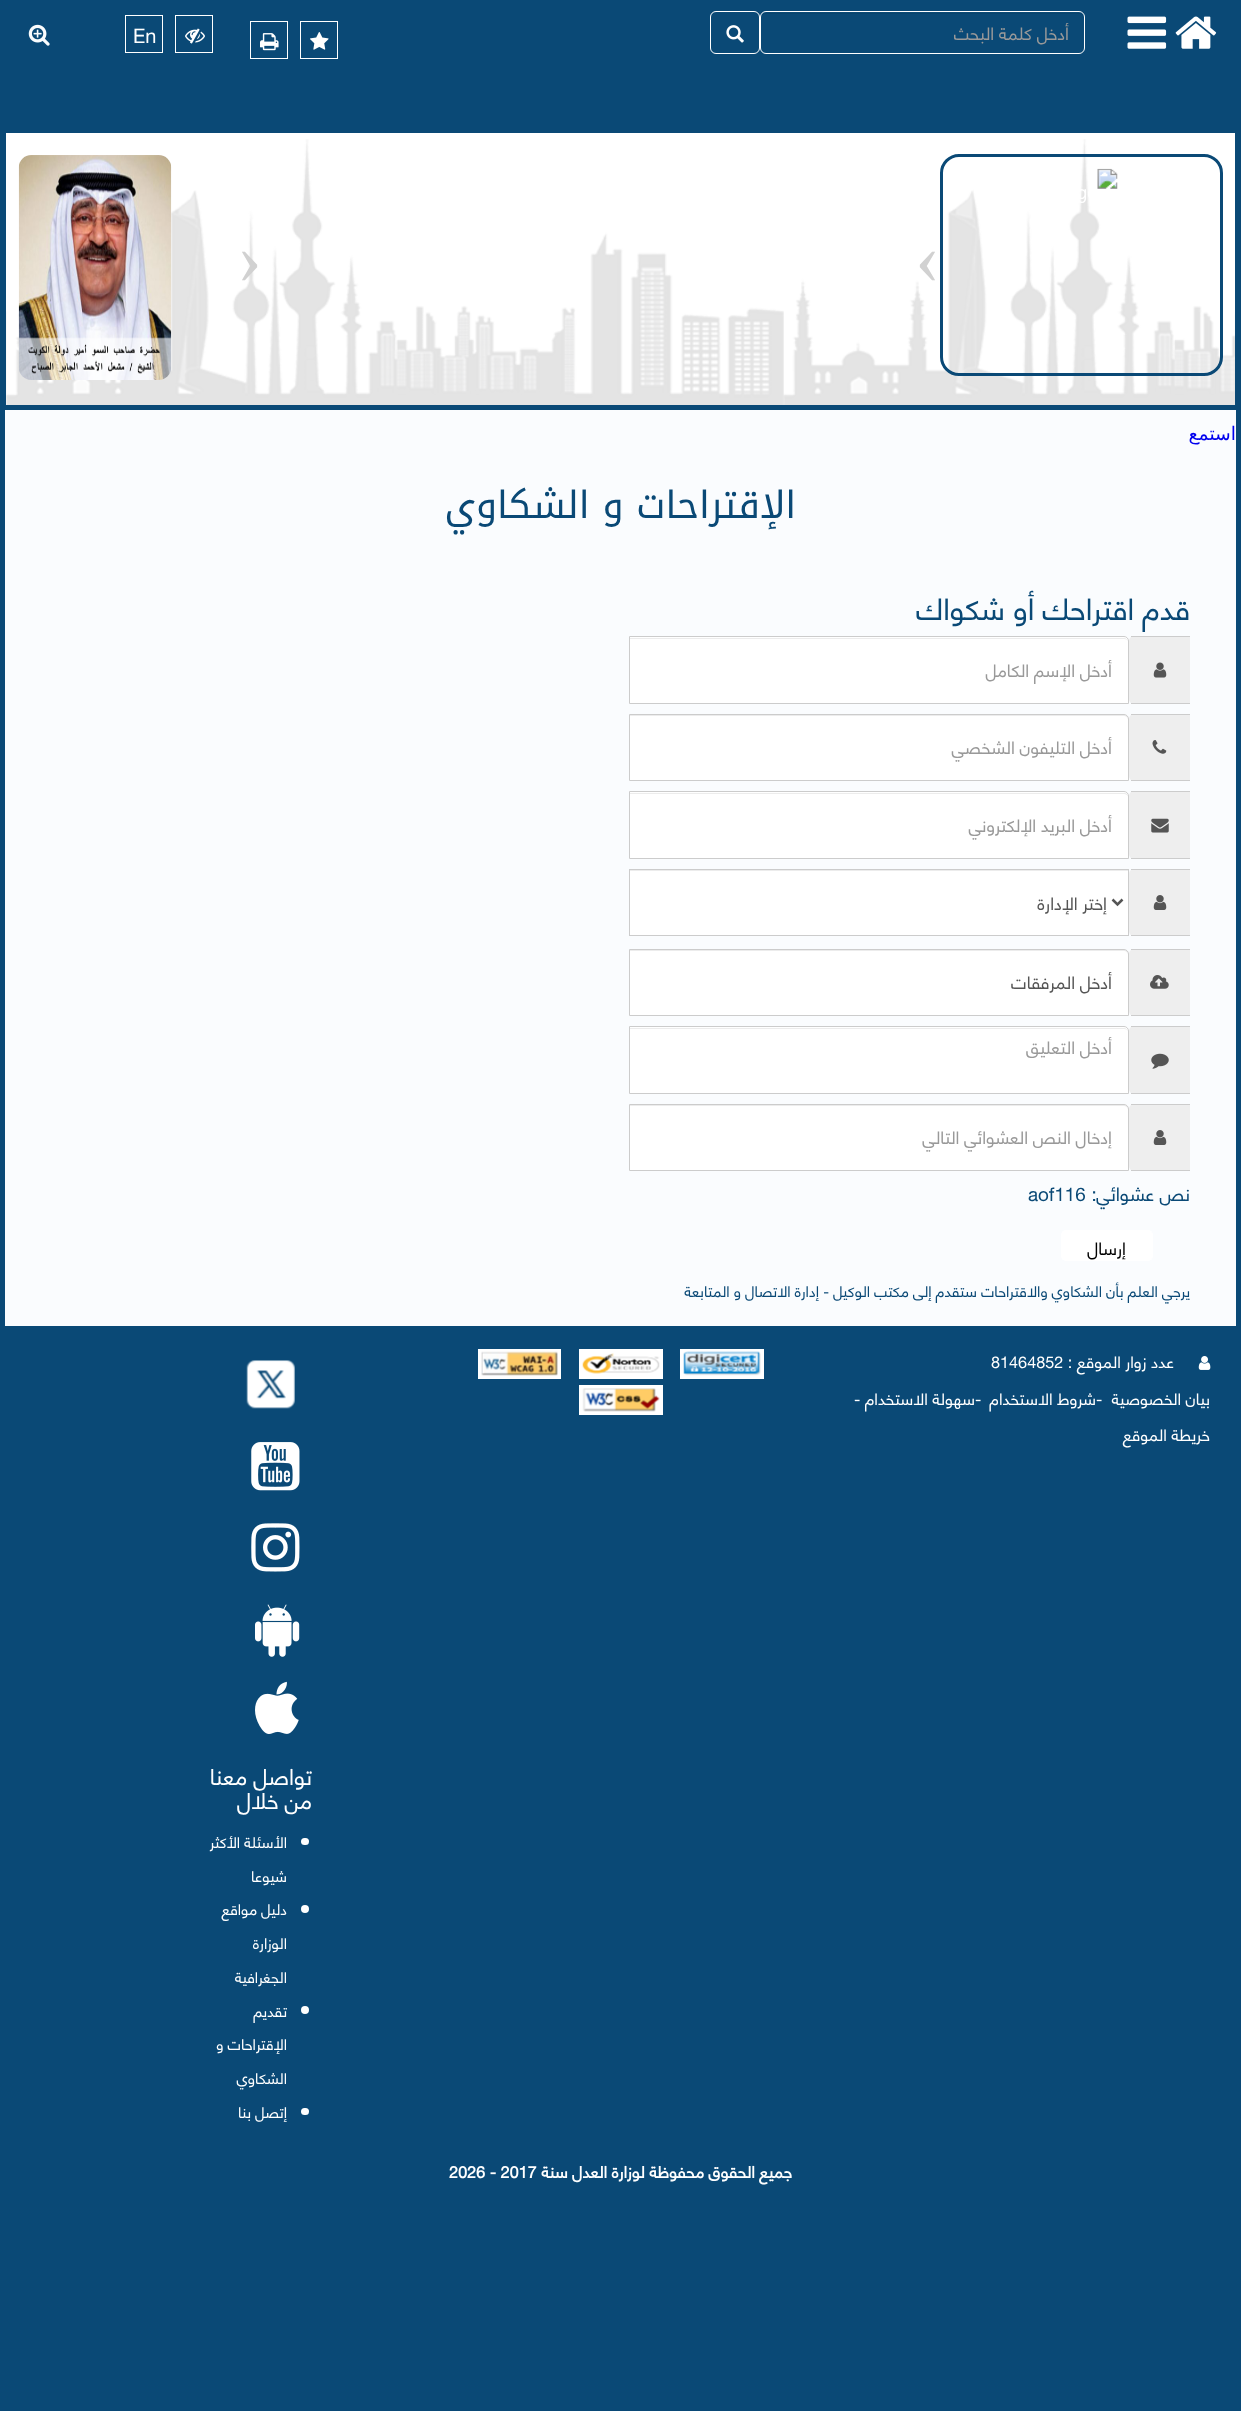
async function draw(canvas) {
	canvas.width = 1241;
	canvas.height = 2411;
	const c = canvas.getContext('2d');
	c.miterLimit = 4;
	c.fontKerning = 'normal';
	async function loadImage(src) {
		const img = new Image();
		img.src = src;
		await img.decode();
		return img;
	}

	c.fillStyle = '#0a4976';
	c.fillRect(0, 0, 1241, 2411);
	c.drawImage(await loadImage('img1.png'), 1175, 16, 42, 33);
	c.drawImage(await loadImage('img2.png'), 1127, 16, 40, 33);
	c.fillStyle = '#09446d';
	c.beginPath();
	c.moveTo(766, 14);
	c.lineTo(1079, 14);
	c.bezierCurveTo(1082, 14, 1084, 16, 1084, 19);
	c.bezierCurveTo(1084, 16, 1082, 13, 1079, 13);
	c.lineTo(766, 13);
	c.bezierCurveTo(763, 13, 761, 16, 761, 19);
	c.bezierCurveTo(761, 16, 763, 14, 766, 14);
	c.closePath();
	c.fill();
	c.beginPath();
	c.roundRect(760.5, 11.5, 324, 42, 5.5);
	c.strokeStyle = '#fff';
	c.stroke();
	c.direction = 'rtl';
	c.font = '17.5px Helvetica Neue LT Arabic';
	c.fillStyle = '#999';
	c.fillText('أدخل كلمة البحث', 1069, 40);
	c.beginPath();
	c.roundRect(710.5, 11.5, 49, 42, 5.5);
	c.stroke();
	c.drawImage(await loadImage('img3.png'), 726, 25, 18, 18);
	c.strokeRect(300.5, 21.5, 37, 37);
	c.drawImage(await loadImage('img4.png'), 310, 32, 19, 18);
	c.strokeRect(250.5, 21.5, 37, 37);
	c.drawImage(await loadImage('img5.png'), 260, 33, 19, 18);
	c.strokeRect(175.5, 15.5, 37, 37);
	c.drawImage(await loadImage('img6.png'), 185, 28, 20, 16);
	c.strokeRect(125.5, 15.5, 37, 37);
	c.direction = 'ltr';
	c.font = '20px Helvetica Neue LT Arabic';
	c.fillStyle = '#fff';
	c.fillText('En', 133, 43);
	c.drawImage(await loadImage('img7.png'), 28, 24, 22, 22);
	c.fillRect(6, 133, 1229, 272);
	c.drawImage(await loadImage('img8.png'), 6, 139, 1229, 266);
	c.beginPath();
	c.roundRect(941.5, 155.5, 280, 219, 17.5);
	c.strokeStyle = '#0a4976';
	c.lineWidth = 3;
	c.stroke();
	c.drawImage(await loadImage('img9.png'), 1080, 168, 38, 35);
	c.font = '75px Liberation Serif';
	c.fillStyle = '#d1d1d1';
	c.fillText('‹', 915, 283);
	c.fillText('›', 237, 283);
	c.drawImage(await loadImage('img10.png'), 18, 155, 154, 225);
	c.fillStyle = '#fafcfe';
	c.fillRect(5, 410, 1231, 916);
	c.direction = 'rtl';
	c.font = '18.75px DejaVu Sans';
	c.fillStyle = '#00e';
	c.fillText('استمع', 1236, 440);
	c.font = '37.5px Noto Kufi Arabic';
	c.fillStyle = '#0a4976';
	c.fillText('الإقتراحات و الشكاوي', 796, 518);
	c.font = '30px Helvetica Neue LT Arabic';
	c.fillText('قدم اقتراحك أو شكواك', 1190, 620);
	c.fillStyle = '#eee';
	c.beginPath();
	c.roundRect(1129, 636, 61, 68, [5, 0, 0, 5]);
	c.fill();
	c.fillStyle = '#ccc';
	c.fillRect(1131, 636, 59, 1);
	c.fillRect(1131, 703, 59, 1);
	c.drawImage(await loadImage('img11.png'), 1153, 662, 14, 16);
	c.fillStyle = '#fff';
	c.beginPath();
	c.roundRect(629, 636, 500, 68, [0, 5, 0, 0]);
	c.fill();
	c.fillStyle = '#ececec';
	c.beginPath();
	c.moveTo(630, 639);
	c.lineTo(1124, 639);
	c.bezierCurveTo(1126, 639, 1128, 640, 1128, 642);
	c.bezierCurveTo(1128, 640, 1126, 638, 1124, 638);
	c.lineTo(630, 638);
	c.closePath();
	c.fill();
	c.beginPath();
	c.roundRect(629.5, 636.5, 499, 67, [0, 4.5, 0, 0]);
	c.strokeStyle = '#ccc';
	c.lineWidth = 1;
	c.stroke();
	c.font = '17.5px Helvetica Neue LT Arabic';
	c.fillStyle = '#999';
	c.fillText('أدخل الإسم الكامل', 1112, 677);
	c.fillStyle = '#eee';
	c.beginPath();
	c.roundRect(1129, 714, 61, 67, [5, 0, 0, 5]);
	c.fill();
	c.fillStyle = '#ccc';
	c.fillRect(1131, 714, 59, 1);
	c.fillRect(1131, 780, 59, 1);
	c.drawImage(await loadImage('img12.png'), 1152, 740, 15, 14);
	c.fillStyle = '#fff';
	c.beginPath();
	c.roundRect(629, 714, 500, 67, [0, 5, 0, 0]);
	c.fill();
	c.fillStyle = '#ececec';
	c.beginPath();
	c.moveTo(630, 716);
	c.lineTo(1124, 716);
	c.bezierCurveTo(1126, 716, 1128, 718, 1128, 720);
	c.bezierCurveTo(1128, 717, 1127, 715, 1124, 715);
	c.lineTo(630, 715);
	c.closePath();
	c.fill();
	c.beginPath();
	c.roundRect(629.5, 714.5, 499, 66, [0, 4.5, 0, 0]);
	c.stroke();
	c.fillStyle = '#999';
	c.fillText('أدخل التليفون الشخصي', 1112, 754);
	c.fillStyle = '#eee';
	c.beginPath();
	c.roundRect(1129, 791, 61, 68, [5, 0, 0, 5]);
	c.fill();
	c.fillStyle = '#ccc';
	c.fillRect(1131, 791, 59, 1);
	c.fillRect(1131, 858, 59, 1);
	c.drawImage(await loadImage('img13.png'), 1151, 818, 18, 15);
	c.fillStyle = '#fff';
	c.beginPath();
	c.roundRect(629, 791, 500, 68, [0, 5, 0, 0]);
	c.fill();
	c.fillStyle = '#ececec';
	c.beginPath();
	c.moveTo(630, 794);
	c.lineTo(1124, 794);
	c.bezierCurveTo(1126, 794, 1128, 795, 1128, 798);
	c.bezierCurveTo(1128, 795, 1127, 793, 1124, 793);
	c.lineTo(630, 793);
	c.closePath();
	c.fill();
	c.beginPath();
	c.roundRect(629.5, 791.5, 499, 67, [0, 4.5, 0, 0]);
	c.stroke();
	c.fillStyle = '#999';
	c.fillText('أدخل البريد الإلكتروني', 1112, 832);
	c.fillStyle = '#eee';
	c.beginPath();
	c.roundRect(1129, 869, 61, 67, [5, 0, 0, 5]);
	c.fill();
	c.fillStyle = '#ccc';
	c.fillRect(1131, 869, 59, 1);
	c.fillRect(1131, 935, 59, 1);
	c.drawImage(await loadImage('img14.png'), 1153, 895, 14, 15);
	c.fillStyle = '#fff';
	c.fillRect(630, 871, 498, 64);
	c.fillStyle = '#ececec';
	c.fillRect(630, 870, 498, 1);
	c.strokeRect(629.5, 869.5, 499, 66);
	c.beginPath();
	c.moveTo(1112.5, 899.5);
	c.lineTo(1117.5, 904.5);
	c.lineTo(1122.5, 899.5);
	c.strokeStyle = '#555';
	c.lineWidth = 2.5;
	c.stroke();
	c.fillStyle = '#555';
	c.fillText('إختر الإدارة', 1107, 910);
	c.fillStyle = '#eee';
	c.beginPath();
	c.roundRect(1129, 949, 61, 67, [5, 0, 0, 5]);
	c.fill();
	c.fillStyle = '#ccc';
	c.fillRect(1131, 949, 59, 1);
	c.fillRect(1131, 1015, 59, 1);
	c.drawImage(await loadImage('img15.png'), 1150, 975, 19, 14);
	c.fillStyle = '#fff';
	c.beginPath();
	c.roundRect(629, 949, 500, 67, [0, 5, 0, 0]);
	c.fill();
	c.fillStyle = '#ececec';
	c.beginPath();
	c.moveTo(630, 951);
	c.lineTo(1124, 951);
	c.bezierCurveTo(1126, 951, 1128, 953, 1128, 955);
	c.bezierCurveTo(1128, 952, 1127, 950, 1124, 950);
	c.lineTo(630, 950);
	c.closePath();
	c.fill();
	c.beginPath();
	c.roundRect(629.5, 949.5, 499, 66, [0, 4.5, 0, 0]);
	c.strokeStyle = '#ccc';
	c.lineWidth = 1;
	c.stroke();
	c.fillStyle = '#555';
	c.fillText('أدخل المرفقات', 1112, 989);
	c.fillStyle = '#eee';
	c.beginPath();
	c.roundRect(1129, 1026, 61, 68, [5, 0, 0, 5]);
	c.fill();
	c.fillStyle = '#ccc';
	c.fillRect(1131, 1026, 59, 1);
	c.fillRect(1131, 1093, 59, 1);
	c.drawImage(await loadImage('img16.png'), 1151, 1053, 18, 16);
	c.fillStyle = '#fff';
	c.beginPath();
	c.roundRect(629, 1026, 500, 68, [0, 5, 0, 0]);
	c.fill();
	c.fillStyle = '#ececec';
	c.beginPath();
	c.moveTo(630, 1029);
	c.lineTo(1124, 1029);
	c.bezierCurveTo(1126, 1029, 1128, 1030, 1128, 1032);
	c.bezierCurveTo(1128, 1030, 1126, 1028, 1124, 1028);
	c.lineTo(630, 1028);
	c.closePath();
	c.fill();
	c.beginPath();
	c.roundRect(629.5, 1026.5, 499, 67, [0, 4.5, 0, 0]);
	c.stroke();
	c.fillStyle = '#999';
	c.fillText('أدخل التعليق', 1112, 1054);
	c.fillStyle = '#eee';
	c.beginPath();
	c.roundRect(1129, 1104, 61, 67, [5, 0, 0, 5]);
	c.fill();
	c.fillStyle = '#ccc';
	c.fillRect(1131, 1104, 59, 1);
	c.fillRect(1131, 1170, 59, 1);
	c.drawImage(await loadImage('img14.png'), 1153, 1130, 14, 15);
	c.fillStyle = '#fff';
	c.beginPath();
	c.roundRect(629, 1104, 500, 67, [0, 5, 0, 0]);
	c.fill();
	c.fillStyle = '#ececec';
	c.beginPath();
	c.moveTo(630, 1106);
	c.lineTo(1124, 1106);
	c.bezierCurveTo(1126, 1106, 1128, 1108, 1128, 1110);
	c.bezierCurveTo(1128, 1107, 1127, 1105, 1124, 1105);
	c.lineTo(630, 1105);
	c.closePath();
	c.fill();
	c.beginPath();
	c.roundRect(629.5, 1104.5, 499, 66, [0, 4.5, 0, 0]);
	c.stroke();
	c.fillStyle = '#999';
	c.fillText('إدخال النص العشوائي التالي', 1112, 1144);
	c.font = '18.75px Helvetica Neue LT Arabic';
	c.fillStyle = '#0a4976';
	c.fillText('نص عشوائي:', 1190, 1201);
	c.direction = 'ltr';
	c.fillText('aof116', 1028, 1201);
	c.fillStyle = '#fff';
	c.beginPath();
	c.roundRect(1061, 1230, 92, 31, 5);
	c.fill();
	c.direction = 'rtl';
	c.font = '17.5px Helvetica Neue LT Arabic';
	c.fillStyle = '#000';
	c.fillText('إرسال', 1126, 1255);
	c.font = '15px Helvetica Neue LT Arabic';
	c.fillStyle = '#0a4976';
	c.fillText('يرجي العلم بأن الشكاوي والاقتراحات ستقدم إلى مكتب الوكيل - إدارة الاتصال و المتابعة', 1190, 1297);
	c.drawImage(await loadImage('img17.png'), 1198, 1356, 13, 14);
	c.font = '16.25px Helvetica Neue LT Arabic';
	c.fillStyle = '#fff';
	c.fillText('عدد زوار الموقع', 1174, 1368);
	c.direction = 'ltr';
	c.fillText('81464852 :', 991, 1368);
	c.direction = 'rtl';
	c.fillText('بيان الخصوصية', 1210, 1405);
	c.direction = 'ltr';
	c.fillText('-', 1096, 1405);
	c.direction = 'rtl';
	c.fillText('شروط الاستخدام', 1096, 1405);
	c.direction = 'ltr';
	c.fillText('-', 975, 1405);
	c.direction = 'rtl';
	c.fillText('سهولة الاستخدام', 975, 1405);
	c.direction = 'ltr';
	c.fillText('-', 854, 1405);
	c.direction = 'rtl';
	c.fillText('خريطة الموقع', 1210, 1441);
	for (const [x, y, w, h, color] of [
		[680, 1349, 84, 30, '#fff'],
		[579, 1349, 84, 30, '#fff'],
		[478, 1349, 83, 30, '#fff'],
	]) {
		c.fillStyle = color;
		c.fillRect(x, y, w, h);
	}
	c.drawImage(await loadImage('img18.png'), 683, 1351, 78, 25);
	c.drawImage(await loadImage('img19.png'), 582, 1353, 78, 21);
	c.drawImage(await loadImage('img20.png'), 481, 1351, 77, 25);
	c.fillRect(579, 1385, 84, 30);
	c.drawImage(await loadImage('img21.png'), 582, 1388, 78, 24);
	c.drawImage(await loadImage('img22.png'), 246, 1360, 49, 49);
	c.drawImage(await loadImage('img23.png'), 251, 1442, 49, 49);
	c.drawImage(await loadImage('img24.png'), 251, 1523, 49, 49);
	c.drawImage(await loadImage('img25.png'), 255, 1604, 45, 53);
	c.drawImage(await loadImage('img26.png'), 255, 1681, 44, 53);
	c.font = '22.5px Helvetica Neue LT Arabic';
	c.fillText('تواصل معنا', 312, 1785);
	c.fillText('من خلال', 312, 1809);
	c.beginPath();
	c.roundRect(301, 1838, 8, 7, 3.5);
	c.fill();
	c.font = '15px Helvetica Neue LT Arabic';
	c.fillText('الأسئلة الأكثر', 287, 1848);
	c.fillText('شيوعا', 287, 1882);
	c.beginPath();
	c.arc(305, 1909, 4, 0, 2 * Math.PI);
	c.fill();
	for (const [text, x, y] of [
		['دليل مواقع', 287, 1915],
		['الوزارة', 287, 1949],
		['الجغرافية', 287, 1983],
	]) {
		c.fillText(text, x, y);
	}
	c.beginPath();
	c.arc(305, 2010, 4, 0, 2 * Math.PI);
	c.fill();
	for (const [text, x, y] of [
		['تقديم', 287, 2017],
		['الإقتراحات و', 287, 2050],
		['الشكاوي', 287, 2084],
	]) {
		c.fillText(text, x, y);
	}
	c.beginPath();
	c.roundRect(301, 2108, 8, 7, 3.5);
	c.fill();
	c.fillText('إتصل بنا', 287, 2118);
	c.font = 'bold 16.25px Helvetica Neue LT Arabic';
	c.fillText('جميع الحقوق محفوظة لوزارة العدل سنة', 792, 2178);
	c.direction = 'ltr';
	c.fillText('2026 - 2017', 449, 2178);
}

draw(document.querySelector('canvas'));
